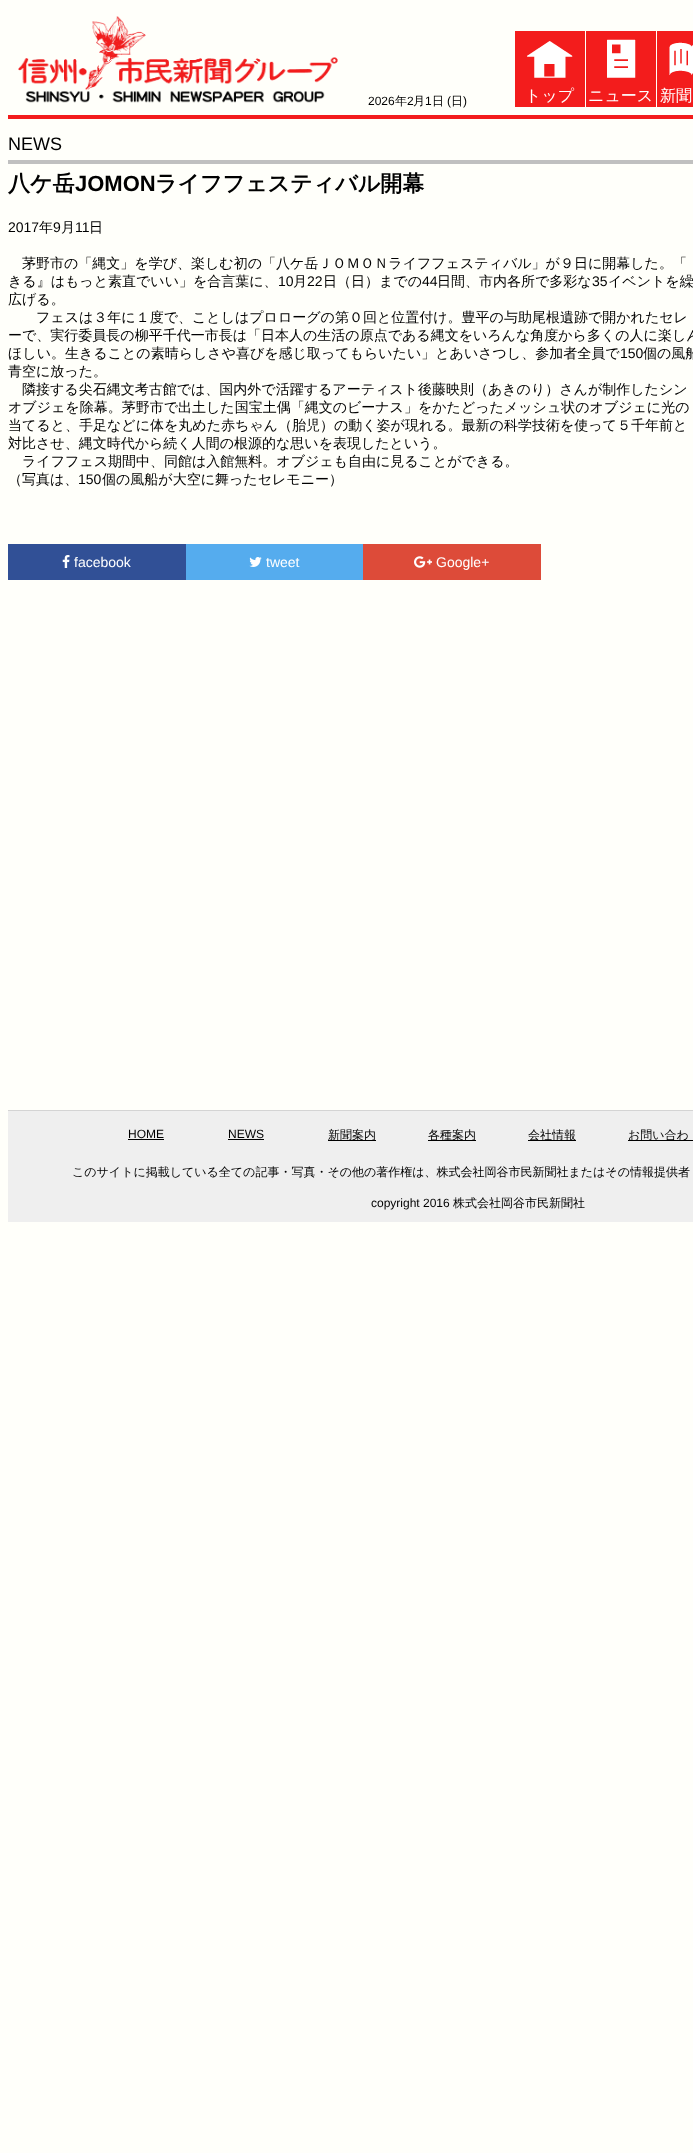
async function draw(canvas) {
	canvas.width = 693;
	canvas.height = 2153;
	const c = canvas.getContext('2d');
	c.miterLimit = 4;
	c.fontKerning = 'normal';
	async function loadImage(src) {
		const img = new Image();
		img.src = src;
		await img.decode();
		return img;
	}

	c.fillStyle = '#fffffa';
	c.fillRect(0, 0, 693, 2153);
	c.fillStyle = '#f31c1c';
	c.fillRect(8, 115, 685, 4);
	c.drawImage(await loadImage('img1.png'), 18, 16, 320, 87);
	c.font = '12px Liberation Sans';
	c.fillStyle = '#000';
	c.fillText('2026', 368, 105);
	c.font = '500 12px WenQuanYi Zen Hei';
	c.fillText('年', 395, 105);
	c.font = '12px Liberation Sans';
	c.fillText('2', 407, 105);
	c.font = '500 12px WenQuanYi Zen Hei';
	c.fillText('月', 413, 105);
	c.font = '12px Liberation Sans';
	c.fillText('1', 425, 105);
	c.font = '500 12px WenQuanYi Zen Hei';
	c.fillText('日', 432, 105);
	c.font = '12px Liberation Sans';
	c.fillText('(', 447, 105);
	c.font = '500 12px WenQuanYi Zen Hei';
	c.fillText('日', 451, 105);
	c.font = '12px Liberation Sans';
	c.fillText(')', 463, 105);
	c.fillStyle = '#f31c1c';
	c.fillRect(515, 31, 70, 76);
	c.drawImage(await loadImage('img2.png'), 527, 41, 46, 37);
	c.font = '500 16px WenQuanYi Zen Hei';
	c.fillStyle = '#fff';
	c.fillText('トップ', 525, 101);
	c.fillStyle = '#f31c1c';
	c.fillRect(586, 31, 70, 76);
	c.drawImage(await loadImage('img3.png'), 607, 39, 29, 39);
	c.fillStyle = '#fff';
	c.fillText('ニュース', 588, 101);
	c.fillStyle = '#f31c1c';
	c.fillRect(657, 31, 36, 76);
	c.drawImage(await loadImage('img4.png'), 669, 42, 24, 33);
	c.fillStyle = '#fff';
	c.fillText('新聞', 660, 101);
	c.fillStyle = '#c0c0c0';
	c.fillRect(8, 160, 685, 4);
	c.font = '18px Liberation Sans';
	c.fillStyle = '#000';
	c.fillText('NEWS', 8, 150);
	c.font = 'bold 22px WenQuanYi Zen Hei';
	c.fillText('八ケ岳', 8, 191);
	c.font = 'bold 22px Liberation Sans';
	c.fillText('JOMON', 75, 191);
	c.font = 'bold 22px WenQuanYi Zen Hei';
	c.fillText('ライフフェスティバル開幕', 155, 191);
	c.font = '14px Liberation Sans';
	c.fillText('2017', 8, 232);
	c.font = '500 14px WenQuanYi Zen Hei';
	c.fillText('年', 39, 232);
	c.font = '14px Liberation Sans';
	c.fillText('9', 53, 232);
	c.font = '500 14px WenQuanYi Zen Hei';
	c.fillText('月', 61, 232);
	c.font = '14px Liberation Sans';
	c.fillText('11', 75, 232);
	c.font = '500 14px WenQuanYi Zen Hei';
	for (const [text, x, y] of [
		['日', 89, 232],
		['茅野市の「縄文」を学び、楽しむ初の「八ケ岳ＪＯＭＯＮライフフェスティバル」が９日に開幕した。「', 22, 268],
		['きる』はもっと素直でいい」を合言葉に、', 8, 286],
	]) {
		c.fillText(text, x, y);
	}
	c.font = '14px Liberation Sans';
	c.fillText('10', 278, 286);
	c.font = '500 14px WenQuanYi Zen Hei';
	c.fillText('月', 293, 286);
	c.font = '14px Liberation Sans';
	c.fillText('22', 307, 286);
	c.font = '500 14px WenQuanYi Zen Hei';
	c.fillText('日（日）までの', 323, 286);
	c.font = '14px Liberation Sans';
	c.fillText('44', 422, 286);
	c.font = '500 14px WenQuanYi Zen Hei';
	c.fillText('日間、市内各所で多彩な', 437, 286);
	c.font = '14px Liberation Sans';
	c.fillText('35', 592, 286);
	c.font = '500 14px WenQuanYi Zen Hei';
	for (const [text, x, y] of [
		['イベントを繰', 608, 286],
		['広げる。', 8, 304],
		['フェスは３年に１度で、ことしはプロローグの第０回と位置付け。豊平の与助尾根遺跡で開かれたセレ', 36, 322],
		['ーで、実行委員長の柳平千代一市長は「日本人の生活の原点である縄文をいろんな角度から多くの人に楽しん', 8, 340],
		['ほしい。生きることの素晴らしさや喜びを感じ取ってもらいたい」とあいさつし、参加者全員で', 8, 358],
	]) {
		c.fillText(text, x, y);
	}
	c.font = '14px Liberation Sans';
	c.fillText('150', 620, 358);
	c.font = '500 14px WenQuanYi Zen Hei';
	for (const [text, x, y] of [
		['個の風船', 643, 358],
		['青空に放った。', 8, 376],
		['隣接する尖石縄文考古館では、国内外で活躍するアーティスト後藤映則（あきのり）さんが制作したシン', 22, 394],
		['オブジェを除幕。茅野市で出土した国宝土偶「縄文のビーナス」をかたどったメッシュ状のオブジェに光の', 8, 412],
		['当てると、手足などに体を丸めた赤ちゃん（胎児）の動く姿が現れる。最新の科学技術を使って５千年前と', 8, 430],
		['対比させ、縄文時代から続く人間の根源的な思いを表現したという。', 8, 448],
		['ライフフェス期間中、同館は入館無料。オブジェも自由に見ることができる。', 22, 466],
		['（写真は、', 8, 484],
	]) {
		c.fillText(text, x, y);
	}
	c.font = '14px Liberation Sans';
	c.fillText('150', 78, 484);
	c.font = '500 14px WenQuanYi Zen Hei';
	c.fillText('個の風船が大空に舞ったセレモニー）', 102, 484);
	c.fillStyle = '#315096';
	c.fillRect(8, 544, 178, 36);
	c.drawImage(await loadImage('img5.png'), 62, 555, 8, 13);
	c.font = '14px Liberation Sans';
	c.fillStyle = '#fff';
	c.fillText('facebook', 74, 567);
	c.fillStyle = '#55acee';
	c.fillRect(186, 544, 177, 36);
	c.drawImage(await loadImage('img6.png'), 249, 557, 13, 10);
	c.fillStyle = '#fff';
	c.fillText('tweet', 266, 567);
	c.fillStyle = '#dd4b39';
	c.fillRect(363, 544, 178, 36);
	c.drawImage(await loadImage('img7.png'), 414, 556, 18, 12);
	c.fillStyle = '#fff';
	c.fillText('Google+', 436, 567);
	c.fillStyle = '#efefef';
	c.fillRect(8, 1111, 685, 111);
	c.fillStyle = '#d4d4d4';
	c.fillRect(8, 1110, 685, 1);
	c.font = '12px Liberation Sans';
	c.fillStyle = '#000';
	c.fillText('HOME', 128, 1138);
	c.fillRect(128, 1139, 36, 1);
	c.fillText('NEWS', 228, 1138);
	c.fillRect(228, 1139, 36, 1);
	c.fillRect(328, 1140, 48, 1);
	c.font = '500 12px WenQuanYi Zen Hei';
	c.fillText('新聞案内', 328, 1139);
	c.fillRect(428, 1140, 48, 1);
	c.fillText('各種案内', 428, 1139);
	c.fillRect(528, 1140, 48, 1);
	c.fillText('会社情報', 528, 1139);
	c.fillRect(628, 1140, 65, 1);
	c.fillText('お問い合わ', 628, 1139);
	c.fillText('このサイトに掲載している全ての記事・写真・その他の著作権は、株式会社岡谷市民新聞社またはその情報提供者', 72, 1176);
	c.font = '12px Liberation Sans';
	c.fillText('copyright 2016', 371, 1207);
	c.font = '500 12px WenQuanYi Zen Hei';
	c.fillText('株式会社岡谷市民新聞社', 453, 1207);
}

draw(document.querySelector('canvas'));
